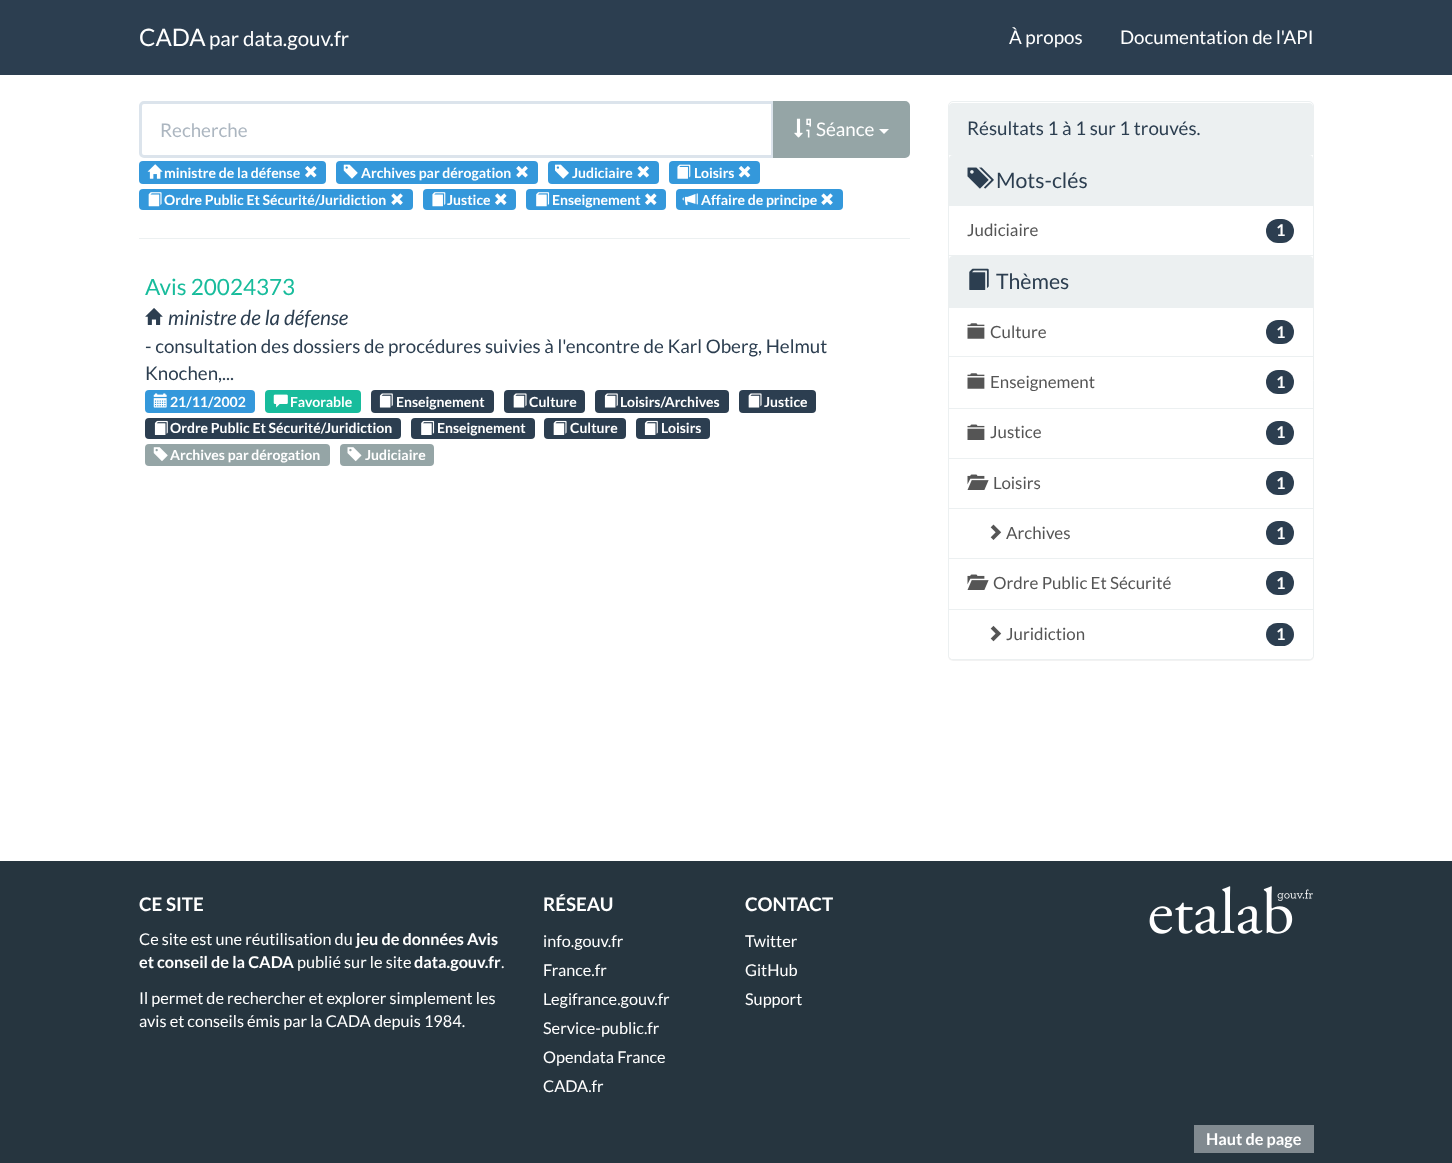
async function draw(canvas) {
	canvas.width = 1452;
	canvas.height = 1163;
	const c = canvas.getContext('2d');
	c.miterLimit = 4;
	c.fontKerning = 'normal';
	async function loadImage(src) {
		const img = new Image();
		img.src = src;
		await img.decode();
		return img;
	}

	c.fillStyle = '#fff';
	c.fillRect(0, 0, 1452, 1163);
	c.fillStyle = '#2c3e50';
	c.fillRect(0, 0, 1452, 75);
	c.font = '24px Lato';
	c.fillStyle = '#fff';
	c.fillText('CADA', 139, 46);
	c.font = '20.5px Lato';
	c.fillText('par data.gouv.fr', 209, 46);
	c.font = '18.75px Lato';
	c.fillText('À propos', 1009, 44);
	c.fillText('Documentation de l\'API', 1120, 44);
	c.beginPath();
	c.roundRect(140.5, 102.5, 632, 54, [3.5, 0, 0, 3.5]);
	c.strokeStyle = '#dce4ec';
	c.lineWidth = 3;
	c.stroke();
	c.fillStyle = '#acb6c0';
	c.fillText('Recherche', 160, 137);
	c.fillStyle = '#95a5a6';
	c.beginPath();
	c.roundRect(774.5, 102.5, 134, 54, [0, 3.5, 3.5, 0]);
	c.fill();
	c.strokeStyle = '#95a5a6';
	c.stroke();
	c.drawImage(await loadImage('img1.png'), 794, 118, 17, 20);
	c.fillStyle = '#fff';
	c.fillText('Séance', 816, 136);
	c.beginPath();
	c.moveTo(879, 129);
	c.lineTo(889, 129);
	c.lineTo(884, 134);
	c.closePath();
	c.fill();
	c.fillStyle = '#3498db';
	c.beginPath();
	c.roundRect(139, 161, 187, 23, 4);
	c.fill();
	c.drawImage(await loadImage('img2.png'), 147, 164, 16, 15);
	c.font = 'bold 14px Lato';
	c.fillStyle = '#fff';
	c.fillText('ministre de la défense', 164, 178);
	c.drawImage(await loadImage('img3.png'), 305, 166, 12, 12);
	c.fillStyle = '#3498db';
	c.beginPath();
	c.roundRect(336, 161, 202, 23, 4);
	c.fill();
	c.drawImage(await loadImage('img4.png'), 343, 164, 15, 15);
	c.fillStyle = '#fff';
	c.fillText('Archives par dérogation', 361, 178);
	c.drawImage(await loadImage('img5.png'), 516, 166, 12, 12);
	c.fillStyle = '#3498db';
	c.beginPath();
	c.roundRect(548, 161, 111, 23, 4);
	c.fill();
	c.drawImage(await loadImage('img6.png'), 555, 164, 14, 15);
	c.fillStyle = '#fff';
	c.fillText('Judiciaire', 572, 178);
	c.drawImage(await loadImage('img7.png'), 637, 166, 12, 12);
	c.fillStyle = '#3498db';
	c.beginPath();
	c.roundRect(669, 161, 91, 23, 4);
	c.fill();
	c.drawImage(await loadImage('img8.png'), 677, 164, 14, 15);
	c.fillStyle = '#fff';
	c.fillText('Loisirs', 694, 178);
	c.drawImage(await loadImage('img9.png'), 738, 166, 13, 12);
	c.fillStyle = '#3498db';
	c.beginPath();
	c.roundRect(139, 189, 274, 21, 4);
	c.fill();
	c.drawImage(await loadImage('img10.png'), 148, 192, 14, 15);
	c.fillStyle = '#fff';
	c.fillText('Ordre Public Et Sécurité/Juridiction', 164, 205);
	c.drawImage(await loadImage('img11.png'), 391, 193, 12, 12);
	c.fillStyle = '#3498db';
	c.beginPath();
	c.roundRect(423, 189, 93, 21, 4);
	c.fill();
	c.drawImage(await loadImage('img12.png'), 432, 192, 14, 15);
	c.fillStyle = '#fff';
	c.fillText('Justice', 447, 205);
	c.drawImage(await loadImage('img13.png'), 495, 193, 12, 12);
	c.fillStyle = '#3498db';
	c.beginPath();
	c.roundRect(526, 189, 140, 21, 4);
	c.fill();
	c.drawImage(await loadImage('img14.png'), 536, 192, 14, 15);
	c.fillStyle = '#fff';
	c.fillText('Enseignement', 552, 205);
	c.drawImage(await loadImage('img13.png'), 645, 193, 12, 12);
	c.fillStyle = '#3498db';
	c.beginPath();
	c.roundRect(676, 189, 167, 21, 4);
	c.fill();
	c.drawImage(await loadImage('img15.png'), 682, 193, 16, 13);
	c.fillStyle = '#fff';
	c.fillText('Affaire de principe', 701, 205);
	c.drawImage(await loadImage('img11.png'), 821, 193, 12, 12);
	c.fillStyle = '#ecf0f1';
	c.fillRect(139, 238, 771, 1);
	c.font = '22.5px Lato';
	c.fillStyle = '#18bc9c';
	c.fillText('Avis 20024373', 145, 295);
	c.drawImage(await loadImage('img16.png'), 145, 308, 18, 17);
	c.font = 'italic 20.6px Lato';
	c.fillStyle = '#2c3e50';
	c.fillText('ministre de la défense', 168, 325);
	c.font = '18.75px Lato';
	c.fillText('- consultation des dossiers de procédures suivies à l\'encontre de Karl Oberg, Helmut', 145, 353);
	c.fillText('Knochen,...', 145, 380);
	c.fillStyle = '#3498db';
	c.beginPath();
	c.roundRect(145, 390, 110, 23, 4);
	c.fill();
	c.drawImage(await loadImage('img17.png'), 153, 393, 14, 15);
	c.font = 'bold 14px Lato';
	c.fillStyle = '#fff';
	c.fillText('21/11/2002', 170, 407);
	c.fillStyle = '#18bc9c';
	c.beginPath();
	c.roundRect(265, 390, 96, 23, 4);
	c.fill();
	c.drawImage(await loadImage('img18.png'), 273, 394, 15, 14);
	c.fillStyle = '#fff';
	c.fillText('Favorable', 290, 407);
	c.fillStyle = '#2c3e50';
	c.beginPath();
	c.roundRect(371, 390, 123, 23, 4);
	c.fill();
	c.drawImage(await loadImage('img19.png'), 379, 393, 14, 15);
	c.fillStyle = '#fff';
	c.fillText('Enseignement', 396, 407);
	c.fillStyle = '#2c3e50';
	c.beginPath();
	c.roundRect(504, 390, 81, 23, 4);
	c.fill();
	c.drawImage(await loadImage('img20.png'), 513, 393, 14, 15);
	c.fillStyle = '#fff';
	c.fillText('Culture', 529, 407);
	c.fillStyle = '#2c3e50';
	c.beginPath();
	c.roundRect(595, 390, 134, 23, 4);
	c.fill();
	c.drawImage(await loadImage('img19.png'), 604, 393, 14, 15);
	c.fillStyle = '#fff';
	c.fillText('Loisirs/Archives', 620, 407);
	c.fillStyle = '#2c3e50';
	c.beginPath();
	c.roundRect(739, 390, 77, 23, 4);
	c.fill();
	c.drawImage(await loadImage('img20.png'), 748, 393, 14, 15);
	c.fillStyle = '#fff';
	c.fillText('Justice', 764, 407);
	c.fillStyle = '#2c3e50';
	c.beginPath();
	c.roundRect(145, 418, 256, 21, 4);
	c.fill();
	c.drawImage(await loadImage('img21.png'), 154, 420, 14, 15);
	c.fillStyle = '#fff';
	c.fillText('Ordre Public Et Sécurité/Juridiction', 170, 433);
	c.fillStyle = '#2c3e50';
	c.beginPath();
	c.roundRect(411, 418, 124, 21, 4);
	c.fill();
	c.drawImage(await loadImage('img22.png'), 421, 420, 14, 15);
	c.fillStyle = '#fff';
	c.fillText('Enseignement', 437, 433);
	c.fillStyle = '#2c3e50';
	c.beginPath();
	c.roundRect(544, 418, 82, 21, 4);
	c.fill();
	c.drawImage(await loadImage('img23.png'), 553, 420, 14, 15);
	c.fillStyle = '#fff';
	c.fillText('Culture', 570, 433);
	c.fillStyle = '#2c3e50';
	c.beginPath();
	c.roundRect(636, 418, 74, 21, 4);
	c.fill();
	c.drawImage(await loadImage('img21.png'), 644, 420, 14, 15);
	c.fillStyle = '#fff';
	c.fillText('Loisirs', 661, 433);
	c.fillStyle = '#95a5a6';
	c.beginPath();
	c.roundRect(145, 444, 185, 22, 4);
	c.fill();
	c.drawImage(await loadImage('img24.png'), 153, 447, 15, 14);
	c.fillStyle = '#fff';
	c.fillText('Archives par dérogation', 170, 460);
	c.fillStyle = '#95a5a6';
	c.beginPath();
	c.roundRect(340, 444, 94, 22, 4);
	c.fill();
	c.drawImage(await loadImage('img25.png'), 347, 447, 15, 15);
	c.fillStyle = '#fff';
	c.fillText('Judiciaire', 365, 460);
	c.fillStyle = '#0000000d';
	c.filter = 'blur(0.5px)';
	c.beginPath();
	c.roundRect(948, 103, 366, 558, 5);
	c.fill();
	c.filter = 'none';
	c.fillStyle = '#fff';
	c.beginPath();
	c.roundRect(948.5, 101.5, 365, 558, 4.5);
	c.fill();
	c.strokeStyle = '#ecf0f1';
	c.lineWidth = 1;
	c.stroke();
	c.fillStyle = '#ecf0f1';
	c.beginPath();
	c.roundRect(949, 103, 364, 52, [4, 4, 0, 0]);
	c.fill();
	c.font = '18.75px Lato';
	c.fillStyle = '#2c3e50';
	c.fillText('Résultats 1 à 1 sur 1 trouvés.', 967, 135);
	c.fillStyle = '#ecf0f1';
	c.beginPath();
	c.roundRect(949, 155, 364, 51, [4, 4, 0, 0]);
	c.fill();
	c.drawImage(await loadImage('img26.png'), 967, 167, 27, 22);
	c.font = '21.25px Lato';
	c.fillStyle = '#2c3e50';
	c.fillText('Mots-clés', 996, 188);
	c.fillStyle = '#ecf0f1';
	c.fillRect(949, 255, 364, 1);
	c.font = '16.9px Lato';
	c.fillStyle = '#555';
	c.fillText('Judiciaire', 967, 236);
	c.fillStyle = '#2c3e50';
	c.beginPath();
	c.roundRect(1266, 219, 28, 24, 12);
	c.fill();
	c.font = 'bold 16.25px Lato';
	c.fillStyle = '#fff';
	c.fillText('1', 1276, 236);
	c.fillStyle = '#ecf0f1';
	c.beginPath();
	c.roundRect(949, 256, 364, 52, [4, 4, 0, 0]);
	c.fill();
	c.drawImage(await loadImage('img27.png'), 969, 268, 20, 22);
	c.font = '21.25px Lato';
	c.fillStyle = '#2c3e50';
	c.fillText('Thèmes', 996, 289);
	c.fillStyle = '#ecf0f1';
	c.fillRect(949, 356, 364, 1);
	c.drawImage(await loadImage('img28.png'), 967, 323, 18, 16);
	c.font = '16.9px Lato';
	c.fillStyle = '#555';
	c.fillText('Culture', 990, 338);
	c.fillStyle = '#2c3e50';
	c.beginPath();
	c.roundRect(1266, 320, 28, 24, 12);
	c.fill();
	c.font = 'bold 16.25px Lato';
	c.fillStyle = '#fff';
	c.fillText('1', 1276, 338);
	c.fillStyle = '#ecf0f1';
	c.fillRect(949, 408, 364, 1);
	c.drawImage(await loadImage('img28.png'), 967, 373, 18, 16);
	c.font = '16.9px Lato';
	c.fillStyle = '#555';
	c.fillText('Enseignement', 990, 388);
	c.fillStyle = '#2c3e50';
	c.beginPath();
	c.roundRect(1266, 370, 28, 24, 12);
	c.fill();
	c.font = 'bold 16.25px Lato';
	c.fillStyle = '#fff';
	c.fillText('1', 1276, 388);
	c.fillStyle = '#ecf0f1';
	c.fillRect(949, 458, 364, 1);
	c.drawImage(await loadImage('img29.png'), 967, 424, 18, 16);
	c.font = '16.9px Lato';
	c.fillStyle = '#555';
	c.fillText('Justice', 990, 438);
	c.fillStyle = '#2c3e50';
	c.beginPath();
	c.roundRect(1266, 421, 28, 24, 12);
	c.fill();
	c.font = 'bold 16.25px Lato';
	c.fillStyle = '#fff';
	c.fillText('1', 1276, 438);
	c.fillStyle = '#ecf0f1';
	c.fillRect(949, 508, 364, 1);
	c.drawImage(await loadImage('img30.png'), 967, 474, 22, 16);
	c.font = '16.9px Lato';
	c.fillStyle = '#555';
	c.fillText('Loisirs', 993, 489);
	c.fillStyle = '#2c3e50';
	c.beginPath();
	c.roundRect(1266, 471, 28, 24, 12);
	c.fill();
	c.font = 'bold 16.25px Lato';
	c.fillStyle = '#fff';
	c.fillText('1', 1276, 489);
	c.fillStyle = '#ecf0f1';
	c.fillRect(949, 558, 364, 1);
	c.drawImage(await loadImage('img31.png'), 990, 524, 12, 16);
	c.font = '16.9px Lato';
	c.fillStyle = '#555';
	c.fillText('Archives', 1006, 539);
	c.fillStyle = '#2c3e50';
	c.beginPath();
	c.roundRect(1266, 521, 28, 24, 12);
	c.fill();
	c.font = 'bold 16.25px Lato';
	c.fillStyle = '#fff';
	c.fillText('1', 1276, 539);
	c.drawImage(await loadImage('img30.png'), 967, 574, 22, 16);
	c.font = '16.9px Lato';
	c.fillStyle = '#555';
	c.fillText('Ordre Public Et Sécurité', 993, 589);
	c.fillStyle = '#2c3e50';
	c.beginPath();
	c.roundRect(1266, 571, 28, 24, 12);
	c.fill();
	c.font = 'bold 16.25px Lato';
	c.fillStyle = '#fff';
	c.fillText('1', 1276, 589);
	c.beginPath();
	c.roundRect(949, 609, 364, 50, [0, 0, 4, 4]);
	c.fill();
	c.fillStyle = '#ecf0f1';
	c.fillRect(949, 609, 364, 1);
	c.drawImage(await loadImage('img32.png'), 990, 625, 12, 17);
	c.font = '16.9px Lato';
	c.fillStyle = '#555';
	c.fillText('Juridiction', 1006, 640);
	c.fillStyle = '#2c3e50';
	c.beginPath();
	c.roundRect(1266, 623, 28, 23, 11.5);
	c.fill();
	c.font = 'bold 16.25px Lato';
	c.fillStyle = '#fff';
	c.fillText('1', 1276, 640);
	c.fillStyle = '#26353f';
	c.fillRect(0, 861, 1452, 302);
	c.font = 'bold 18.75px Lato';
	c.fillStyle = '#fff';
	c.fillText('CE SITE', 139, 911);
	c.font = '16.25px Lato';
	c.fillText('Ce site est une réutilisation du', 139, 945);
	c.font = 'bold 16.25px Lato';
	c.fillText('jeu de données Avis', 356, 945);
	c.fillText('et conseil de la CADA', 139, 968);
	c.font = '16.25px Lato';
	c.fillText('publié sur le site', 297, 968);
	c.font = 'bold 16.25px Lato';
	c.fillText('data.gouv.fr', 414, 968);
	c.font = '16.25px Lato';
	for (const [text, x, y] of [
		['.', 501, 968],
		['Il permet de rechercher et explorer simplement les', 139, 1004],
		['avis et conseils émis par la CADA depuis 1984.', 139, 1027],
	]) {
		c.fillText(text, x, y);
	}
	c.font = 'bold 18.75px Lato';
	c.fillText('RÉSEAU', 543, 911);
	c.font = '16.25px Lato';
	for (const [text, x, y] of [
		['info.gouv.fr', 543, 947],
		['France.fr', 543, 976],
		['Legifrance.gouv.fr', 543, 1005],
		['Service-public.fr', 543, 1034],
		['Opendata France', 543, 1063],
		['CADA.fr', 543, 1092],
	]) {
		c.fillText(text, x, y);
	}
	c.font = 'bold 18.75px Lato';
	c.fillText('CONTACT', 745, 911);
	c.font = '16.25px Lato';
	for (const [text, x, y] of [
		['Twitter', 745, 947],
		['GitHub', 745, 976],
		['Support', 745, 1005],
	]) {
		c.fillText(text, x, y);
	}
	c.drawImage(await loadImage('img33.png'), 1149, 886, 164, 48);
	c.fillStyle = '#818a90';
	c.fillRect(1194, 1125, 120, 28);
	c.font = 'bold 16.25px Lato';
	c.fillStyle = '#fff';
	c.fillText('Haut de page', 1206, 1145);
}

draw(document.querySelector('canvas'));
